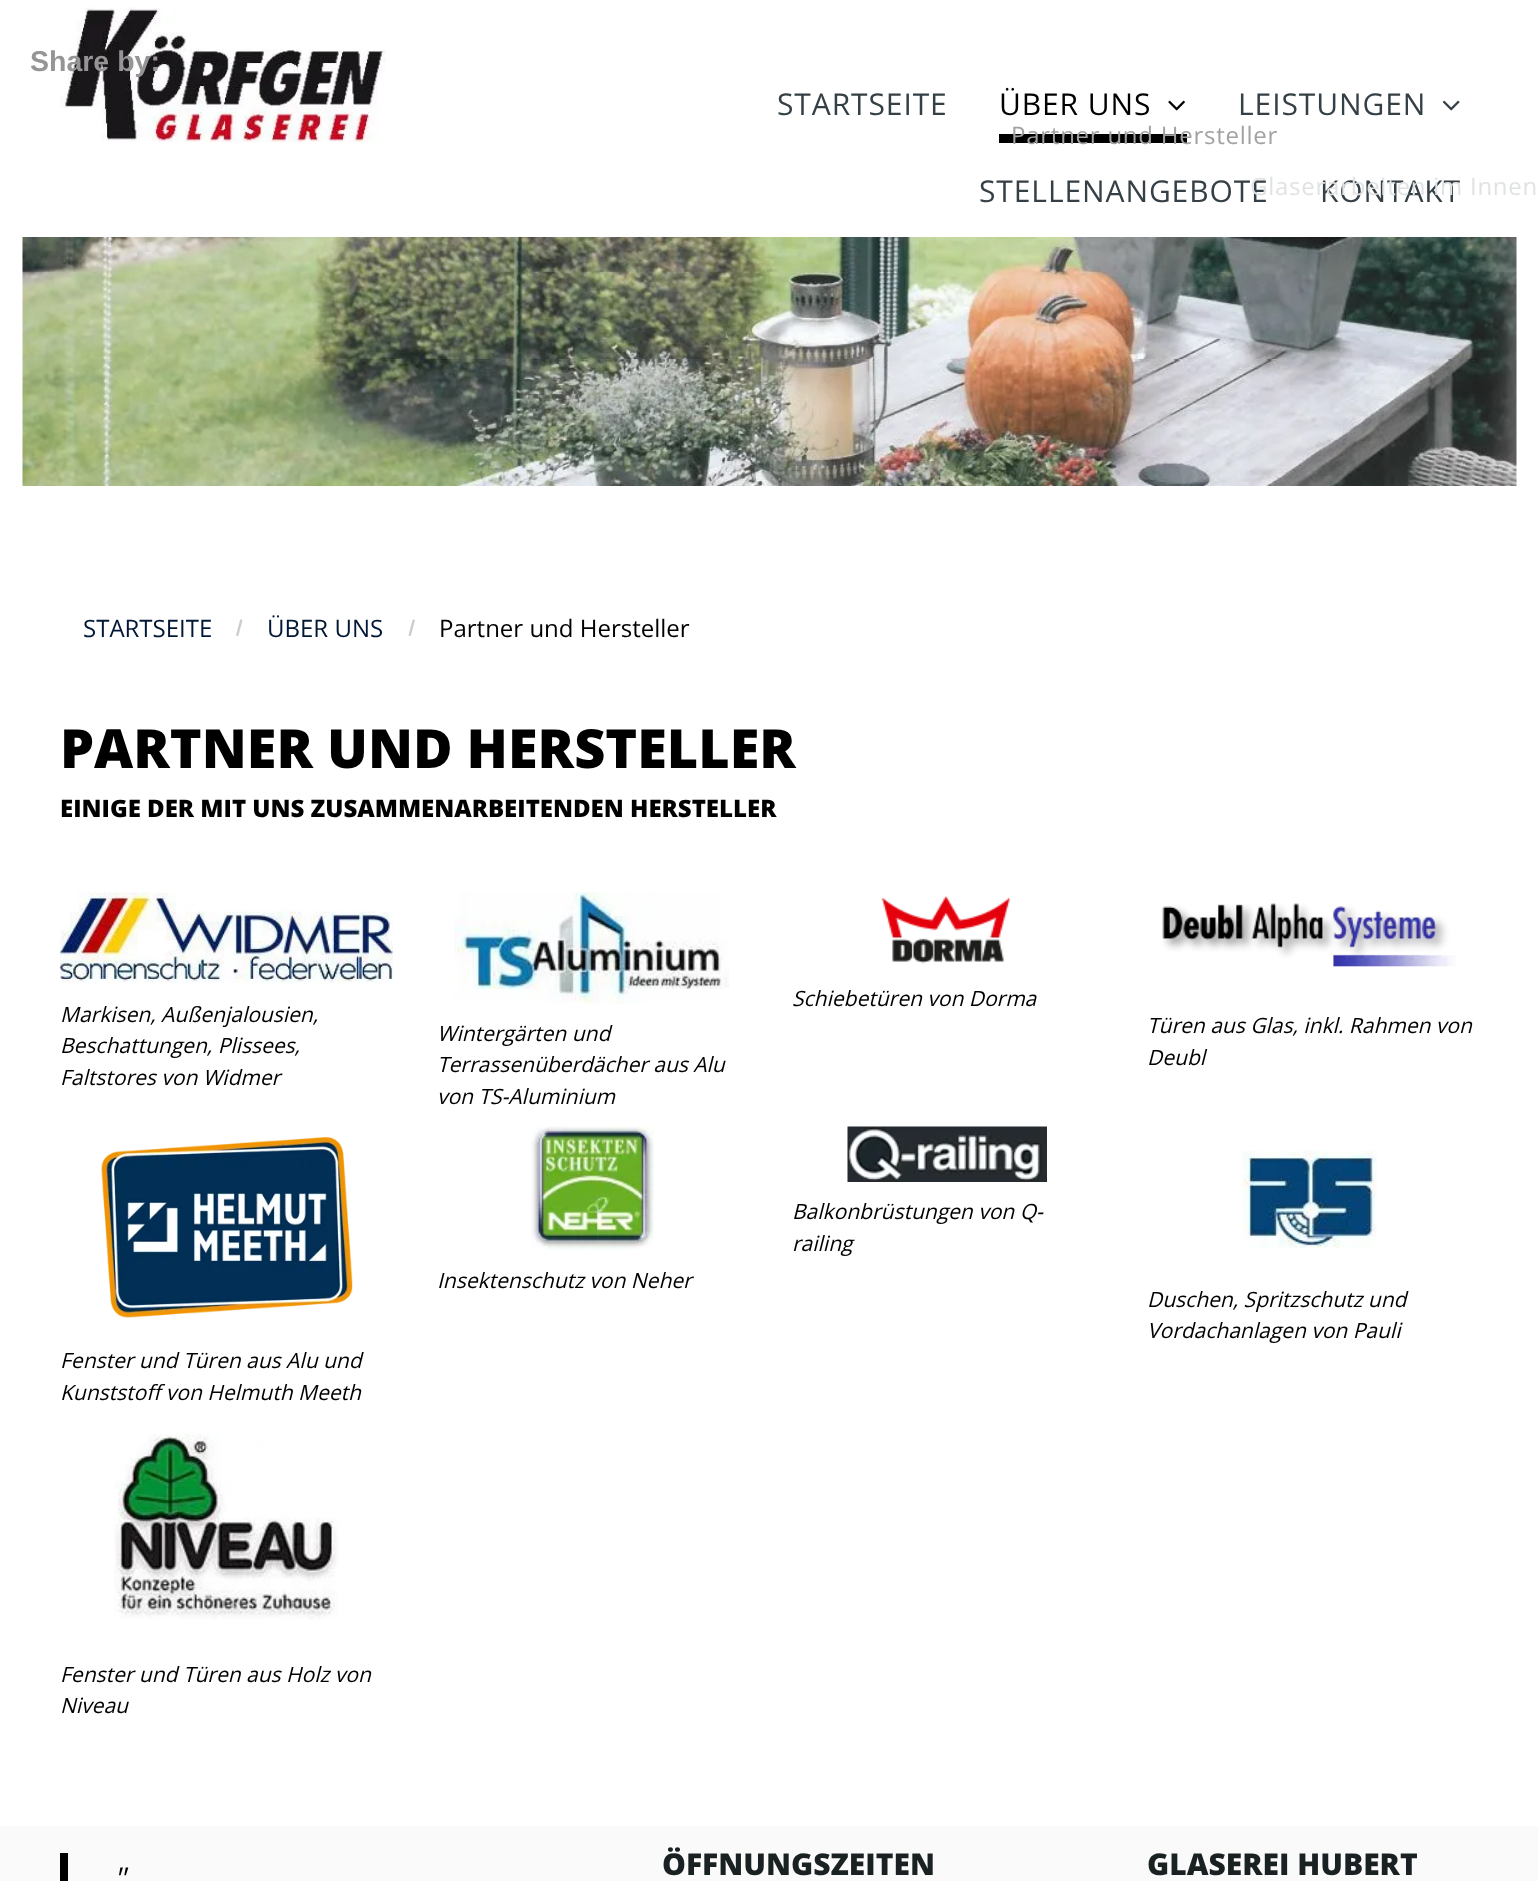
async function draw(canvas) {
	canvas.width = 1538;
	canvas.height = 1881;
	const c = canvas.getContext('2d');
	c.miterLimit = 4;
	c.fontKerning = 'normal';
	async function loadImage(src) {
		const img = new Image();
		img.src = src;
		await img.decode();
		return img;
	}

	c.fillStyle = '#fff';
	c.fillRect(0, 0, 1538, 1881);
	c.drawImage(await loadImage('img1.png'), 60, 7, 326, 136);
	c.font = 'bold 28.5px Liberation Sans';
	c.fillStyle = '#969596';
	c.fillText('Share by:', 30, 71);
	c.letterSpacing = '0.9px';
	c.font = '30px Open Sans';
	c.fillStyle = '#354046';
	c.fillText('STARTSEITE', 777, 115);
	c.fillStyle = '#000';
	c.fillText('ÜBER UNS', 999, 115);
	c.drawImage(await loadImage('img2.png'), 1168, 100, 17, 11);
	c.fillRect(999, 134, 188, 9);
	c.letterSpacing = '0.75px';
	c.font = '24px Open Sans';
	c.fillStyle = '#a2a2a2';
	c.fillText('Partner und Hersteller', 1011, 144);
	c.letterSpacing = '0.9px';
	c.font = '30px Open Sans';
	c.fillStyle = '#354046';
	c.fillText('LEISTUNGEN', 1238, 115);
	c.drawImage(await loadImage('img3.png'), 1442, 100, 18, 11);
	c.fillText('STELLENANGEBOTE', 979, 202);
	c.fillText('KONTAKT', 1320, 202);
	c.letterSpacing = '0.75px';
	c.font = '24px Open Sans';
	c.fillStyle = '#e0e2e3';
	c.fillText('Glaserarbeiten im Innen', 1250, 195);
	c.drawImage(await loadImage('img4.png'), 22, 237, 1495, 249);
	c.letterSpacing = '0px';
	c.fillStyle = '#011735';
	c.fillText('STARTSEITE', 83, 637);
	c.drawImage(await loadImage('img5.png'), 236, 619, 7, 17);
	c.fillText('ÜBER UNS', 267, 637);
	c.drawImage(await loadImage('img6.png'), 408, 619, 7, 17);
	c.fillStyle = '#000';
	c.fillText('Partner und Hersteller', 439, 637);
	c.font = '800 54px Open Sans';
	c.fillText('PARTNER UND HERSTELLER', 60, 768);
	c.font = '800 24px Open Sans';
	c.fillText('EINIGE DER MIT UNS ZUSAMMENARBEITENDEN HERSTELLER', 60, 817);
	c.drawImage(await loadImage('img7.png'), 881, 895, 129, 69);
	c.font = 'italic 21px Open Sans';
	c.fillText('Schiebetüren von Dorma', 792, 1006);
	c.drawImage(await loadImage('img8.png'), 60, 892, 333, 91);
	for (const [text, x, y] of [
		['Markisen, Außenjalousien,', 60, 1022],
		['Beschattungen, Plissees,', 60, 1053],
		['Faltstores von Widmer', 60, 1085],
	]) {
		c.fillText(text, x, y);
	}
	c.drawImage(await loadImage('img9.png'), 454, 892, 275, 112);
	for (const [text, x, y] of [
		['Wintergärten und', 437, 1041],
		['Terrassenüberdächer aus Alu', 437, 1072],
		['von TS-Aluminium', 437, 1104],
	]) {
		c.fillText(text, x, y);
	}
	c.drawImage(await loadImage('img10.png'), 1162, 903, 294, 64);
	c.fillText('Türen aus Glas, inkl. Rahmen von', 1147, 1033);
	c.fillText('Deubl', 1147, 1065);
	c.drawImage(await loadImage('img11.png'), 847, 1126, 200, 56);
	c.fillText('Balkonbrüstungen von Q-', 792, 1219);
	c.fillText('railing', 792, 1251);
	c.drawImage(await loadImage('img12.png'), 531, 1126, 123, 124);
	c.fillText('Insektenschutz von Neher', 437, 1288);
	c.drawImage(await loadImage('img13.png'), 1241, 1150, 136, 99);
	c.fillText('Duschen, Spritzschutz und', 1147, 1307);
	c.fillText('Vordachanlagen von Pauli', 1147, 1338);
	c.drawImage(await loadImage('img14.png'), 101, 1137, 252, 181);
	c.fillText('Fenster und Türen aus Alu und', 60, 1368);
	c.fillText('Kunststoff von Helmuth Meeth', 60, 1400);
	c.drawImage(await loadImage('img15.png'), 114, 1434, 225, 186);
	c.fillText('Fenster und Türen aus Holz von', 60, 1682);
	c.fillText('Niveau', 60, 1713);
	c.fillStyle = '#fafafa';
	c.fillRect(0, 1826, 1538, 55);
	c.fillStyle = '#000';
	c.fillRect(60, 1853, 8, 28);
	c.font = 'italic 30px Open Sans';
	c.fillText('"', 113, 1889);
	c.font = '800 30px Open Sans';
	c.fillStyle = '#192123';
	c.fillText('ÖFFNUNGSZEITEN', 662, 1875);
	c.fillText('GLASEREI HUBERT', 1147, 1875);
}

draw(document.querySelector('canvas'));
